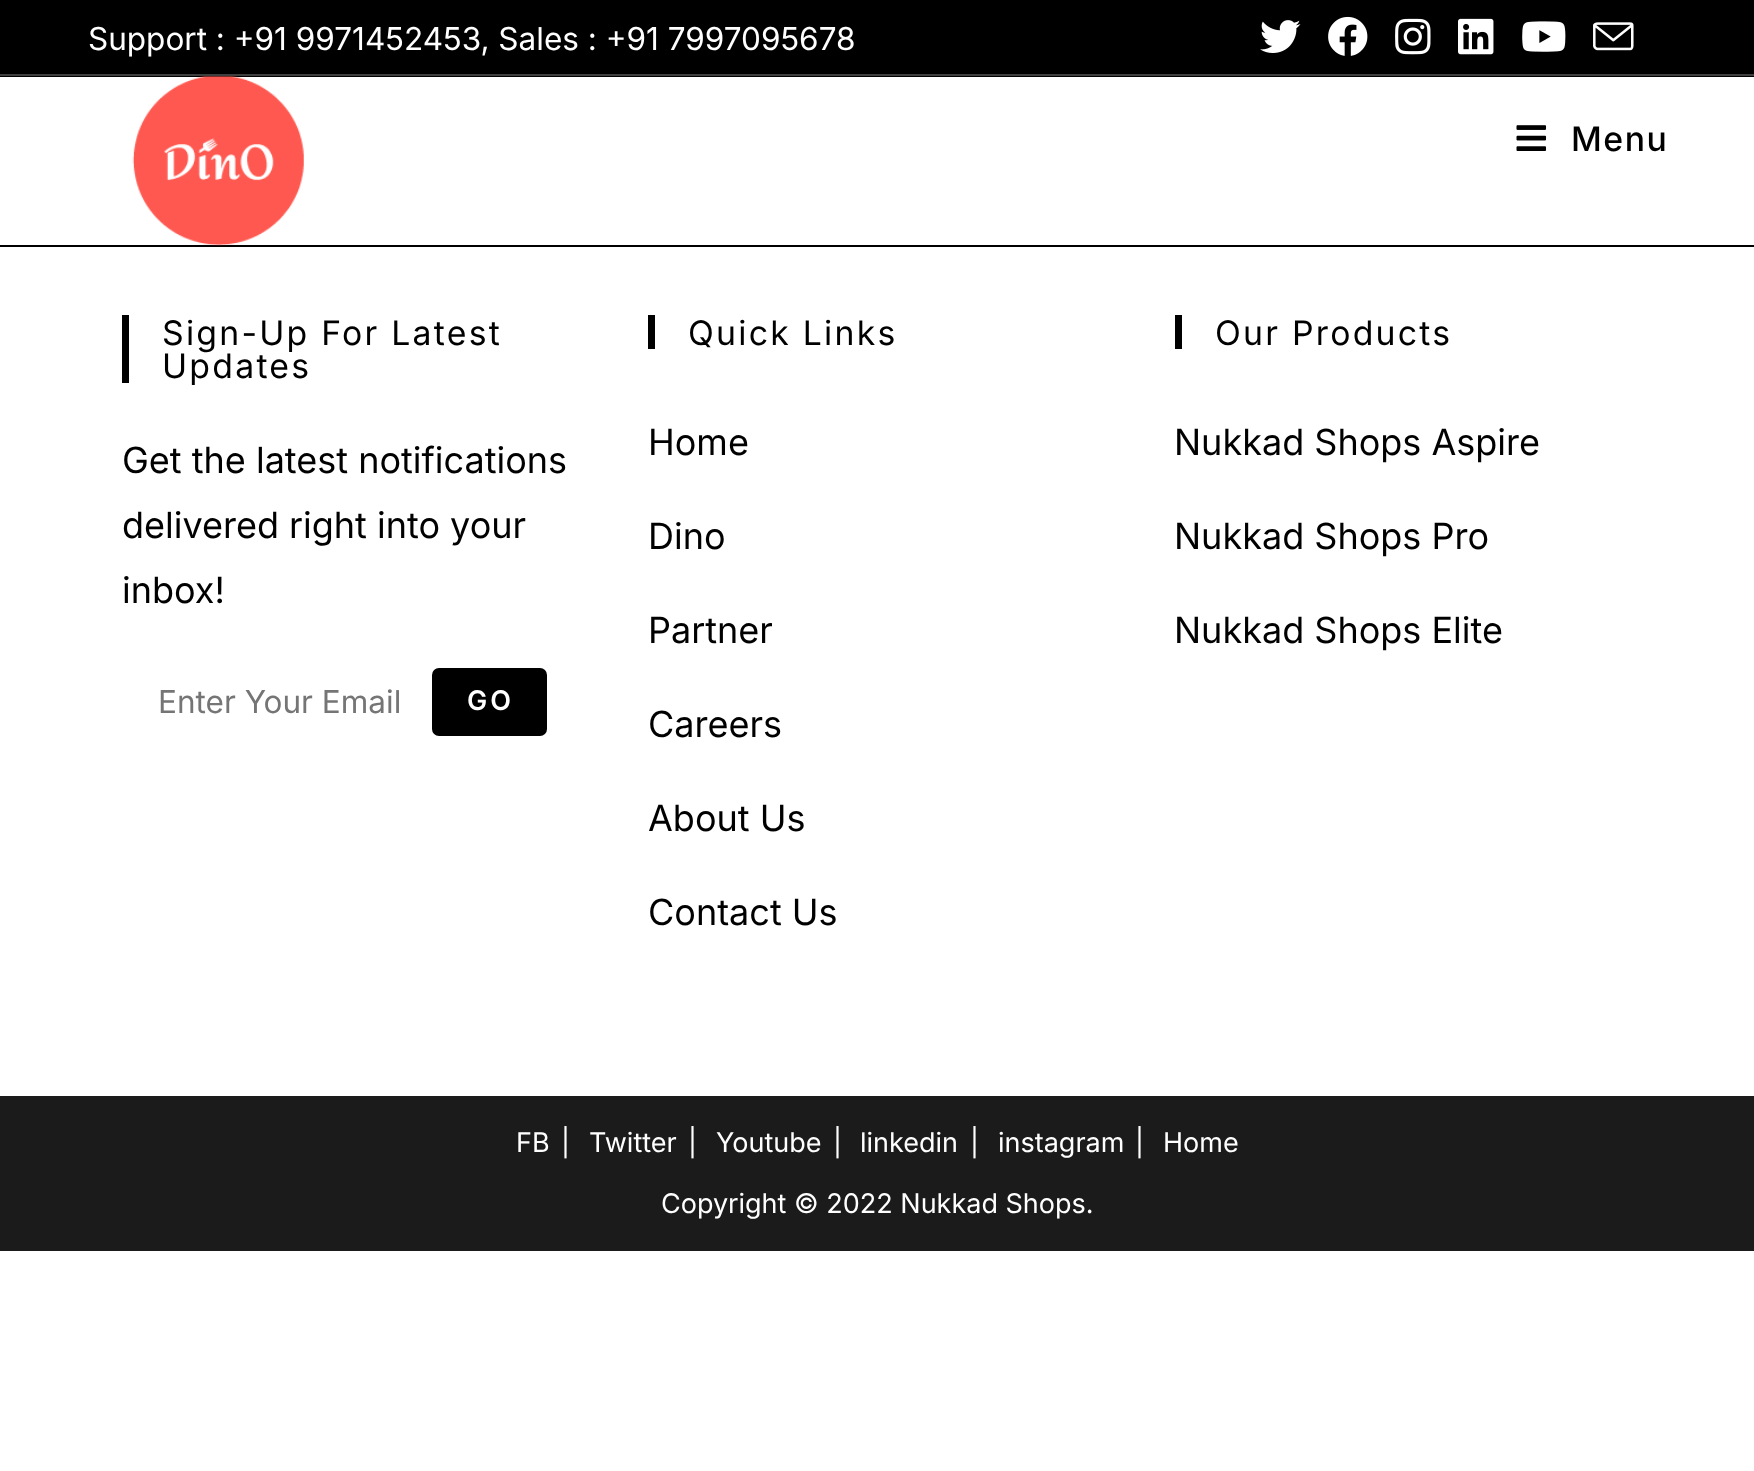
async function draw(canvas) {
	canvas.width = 1754;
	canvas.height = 1471;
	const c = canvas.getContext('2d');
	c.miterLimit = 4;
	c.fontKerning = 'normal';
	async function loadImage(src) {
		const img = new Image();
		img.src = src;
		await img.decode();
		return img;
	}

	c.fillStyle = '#fff';
	c.fillRect(0, 0, 1754, 1471);
	c.fillStyle = '#000';
	c.fillRect(0, 0, 1754, 77);
	c.fillStyle = '#3f3f3f';
	c.fillRect(0, 74, 1754, 2);
	c.font = '31.5px Inter';
	c.fillStyle = '#fff';
	c.fillText('Support : +91 9971452453, Sales : +91 7997095678', 88, 50);
	c.drawImage(await loadImage('img1.png'), 1260, 20, 41, 33);
	c.drawImage(await loadImage('img2.png'), 1328, 16, 40, 40);
	c.drawImage(await loadImage('img3.png'), 1395, 18, 36, 37);
	c.drawImage(await loadImage('img4.png'), 1458, 18, 36, 37);
	c.drawImage(await loadImage('img5.png'), 1522, 21, 44, 31);
	c.drawImage(await loadImage('img6.png'), 1593, 22, 41, 29);
	c.fillStyle = '#000';
	c.fillRect(0, 245, 1754, 2);
	c.drawImage(await loadImage('img7.png'), 132, 76, 172, 170);
	c.drawImage(await loadImage('img8.png'), 1516, 125, 31, 26);
	c.letterSpacing = '1.5px';
	c.font = '500 33.75px Inter';
	c.fillText('Menu', 1571, 151);
	c.fillRect(122, 315, 7, 68);
	c.letterSpacing = '2.25px';
	c.font = '33.75px Inter';
	c.fillText('Sign-Up For Latest', 162, 345);
	c.fillText('Updates', 162, 378);
	c.letterSpacing = '0px';
	c.font = '36px Inter';
	for (const [text, x, y] of [
		['Get the latest notifications', 122, 473],
		['delivered right into your', 122, 538],
		['inbox!', 122, 603],
	]) {
		c.fillText(text, x, y);
	}
	c.font = '31.5px Inter';
	c.fillStyle = '#757575';
	c.fillText('Enter Your Email', 158, 713);
	c.fillStyle = '#000';
	c.beginPath();
	c.roundRect(432, 668, 115, 68, 7);
	c.fill();
	c.letterSpacing = '3px';
	c.font = '600 27px Inter';
	c.fillStyle = '#fff';
	c.fillText('GO', 467, 710);
	c.fillStyle = '#000';
	c.fillRect(648, 315, 7, 34);
	c.letterSpacing = '2.25px';
	c.font = '33.75px Inter';
	c.fillText('Quick Links', 688, 345);
	c.letterSpacing = '0px';
	c.font = '36px Inter';
	for (const [text, x, y] of [
		['Home', 648, 455],
		['Dino', 648, 549],
		['Partner', 648, 643],
		['Careers', 648, 737],
		['About Us', 648, 831],
		['Contact Us', 648, 925],
	]) {
		c.fillText(text, x, y);
	}
	c.fillRect(1175, 315, 7, 34);
	c.letterSpacing = '2.25px';
	c.font = '33.75px Inter';
	c.fillText('Our Products', 1215, 345);
	c.letterSpacing = '0px';
	c.font = '36px Inter';
	for (const [text, x, y] of [
		['Nukkad Shops Aspire', 1174, 455],
		['Nukkad Shops Pro', 1174, 549],
		['Nukkad Shops Elite', 1174, 643],
	]) {
		c.fillText(text, x, y);
	}
	c.fillStyle = '#1b1b1b';
	c.fillRect(0, 1096, 1754, 155);
	c.font = '27px Inter';
	c.fillStyle = '#fff';
	for (const [text, x, y] of [
		['FB', 516, 1152],
		['|', 561, 1152],
		['Twitter', 589, 1152],
		['|', 688, 1152],
		['Youtube', 716, 1152],
		['|', 833, 1152],
		['linkedin', 860, 1152],
		['|', 970, 1152],
		['instagram', 998, 1152],
		['|', 1135, 1152],
		['Home', 1163, 1152],
		['Copyright © 2022 Nukkad Shops.', 661, 1213],
	]) {
		c.fillText(text, x, y);
	}
}

draw(document.querySelector('canvas'));
